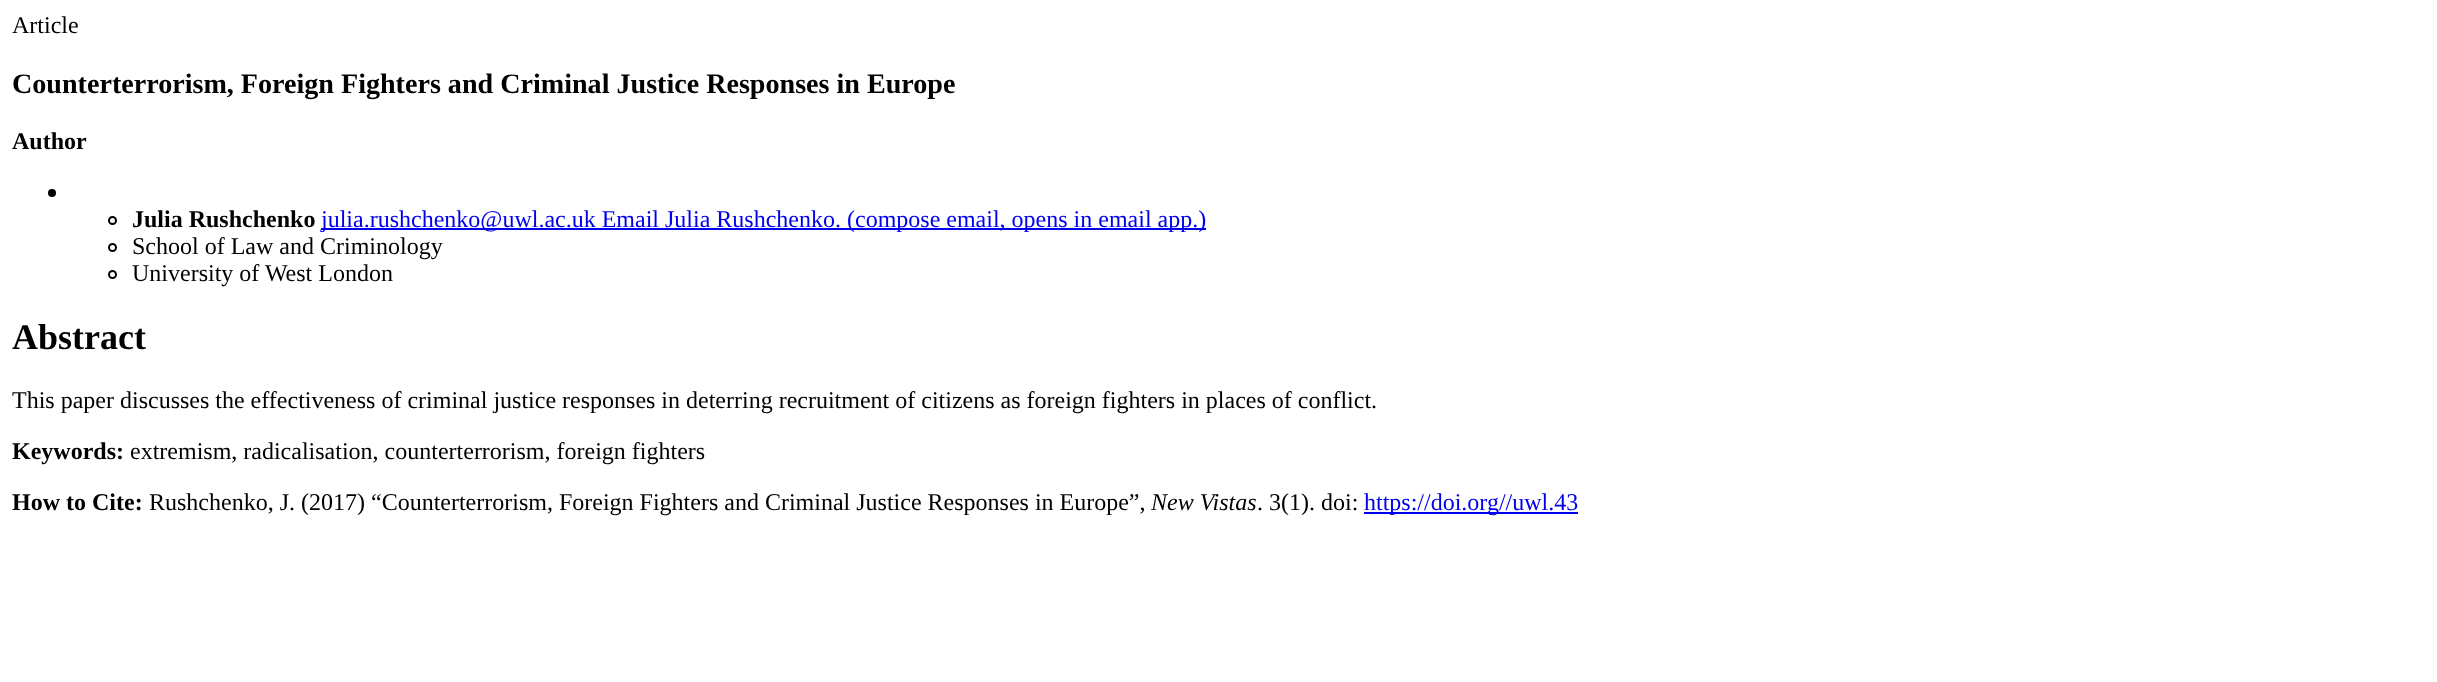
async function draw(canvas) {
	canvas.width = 2437;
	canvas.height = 682;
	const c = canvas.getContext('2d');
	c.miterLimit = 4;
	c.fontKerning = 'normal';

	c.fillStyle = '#fff';
	c.fillRect(0, 0, 2437, 682);
	c.font = '24px Liberation Serif';
	c.fillStyle = '#000';
	c.fillText('Article', 12, 33);
	c.font = 'bold 28.1px Liberation Serif';
	c.fillText('Counterterrorism, Foreign Fighters and Criminal Justice Responses in Europe', 12, 93);
	c.font = 'bold 24px Liberation Serif';
	c.fillText('Author', 12, 149);
	c.beginPath();
	c.arc(52, 193, 4, 0, 2 * Math.PI);
	c.fill();
	c.beginPath();
	c.arc(112.5, 220.5, 3.5, 0, 2 * Math.PI);
	c.strokeStyle = '#000';
	c.lineWidth = 2;
	c.stroke();
	c.fillText('Julia Rushchenko', 132, 227);
	c.fillStyle = '#00e';
	c.fillRect(321, 228, 885, 2);
	c.font = '24px Liberation Serif';
	c.fillText('julia.rushchenko@uwl.ac.uk Email Julia Rushchenko. (compose email, opens in email app.)', 321, 227);
	c.beginPath();
	c.arc(112.5, 247.5, 3.5, 0, 2 * Math.PI);
	c.stroke();
	c.fillStyle = '#000';
	c.fillText('School of Law and Criminology', 132, 254);
	c.beginPath();
	c.arc(112.5, 274.5, 3.5, 0, 2 * Math.PI);
	c.stroke();
	c.fillText('University of West London', 132, 281);
	c.font = 'bold 36px Liberation Serif';
	c.fillText('Abstract', 12, 349);
	c.font = '24px Liberation Serif';
	c.fillText('This paper discusses the effectiveness of criminal justice responses in deterring recruitment of citizens as foreign fighters in places of conflict.', 12, 408);
	c.font = 'bold 24px Liberation Serif';
	c.fillText('Keywords:', 12, 459);
	c.font = '24px Liberation Serif';
	c.fillText('extremism, radicalisation, counterterrorism, foreign fighters', 130, 459);
	c.font = 'bold 24px Liberation Serif';
	c.fillText('How to Cite:', 12, 510);
	c.font = '24px Liberation Serif';
	c.fillText('Rushchenko, J. (2017) “Counterterrorism, Foreign Fighters and Criminal Justice Responses in Europe”,', 149, 510);
	c.font = 'italic 24px Liberation Serif';
	c.fillText('New Vistas', 1151, 510);
	c.font = '24px Liberation Serif';
	c.fillText('. 3(1). doi:', 1257, 510);
	c.fillStyle = '#00e';
	c.fillRect(1364, 512, 214, 2);
	c.fillText('https://doi.org//uwl.43', 1364, 510);
}

draw(document.querySelector('canvas'));
